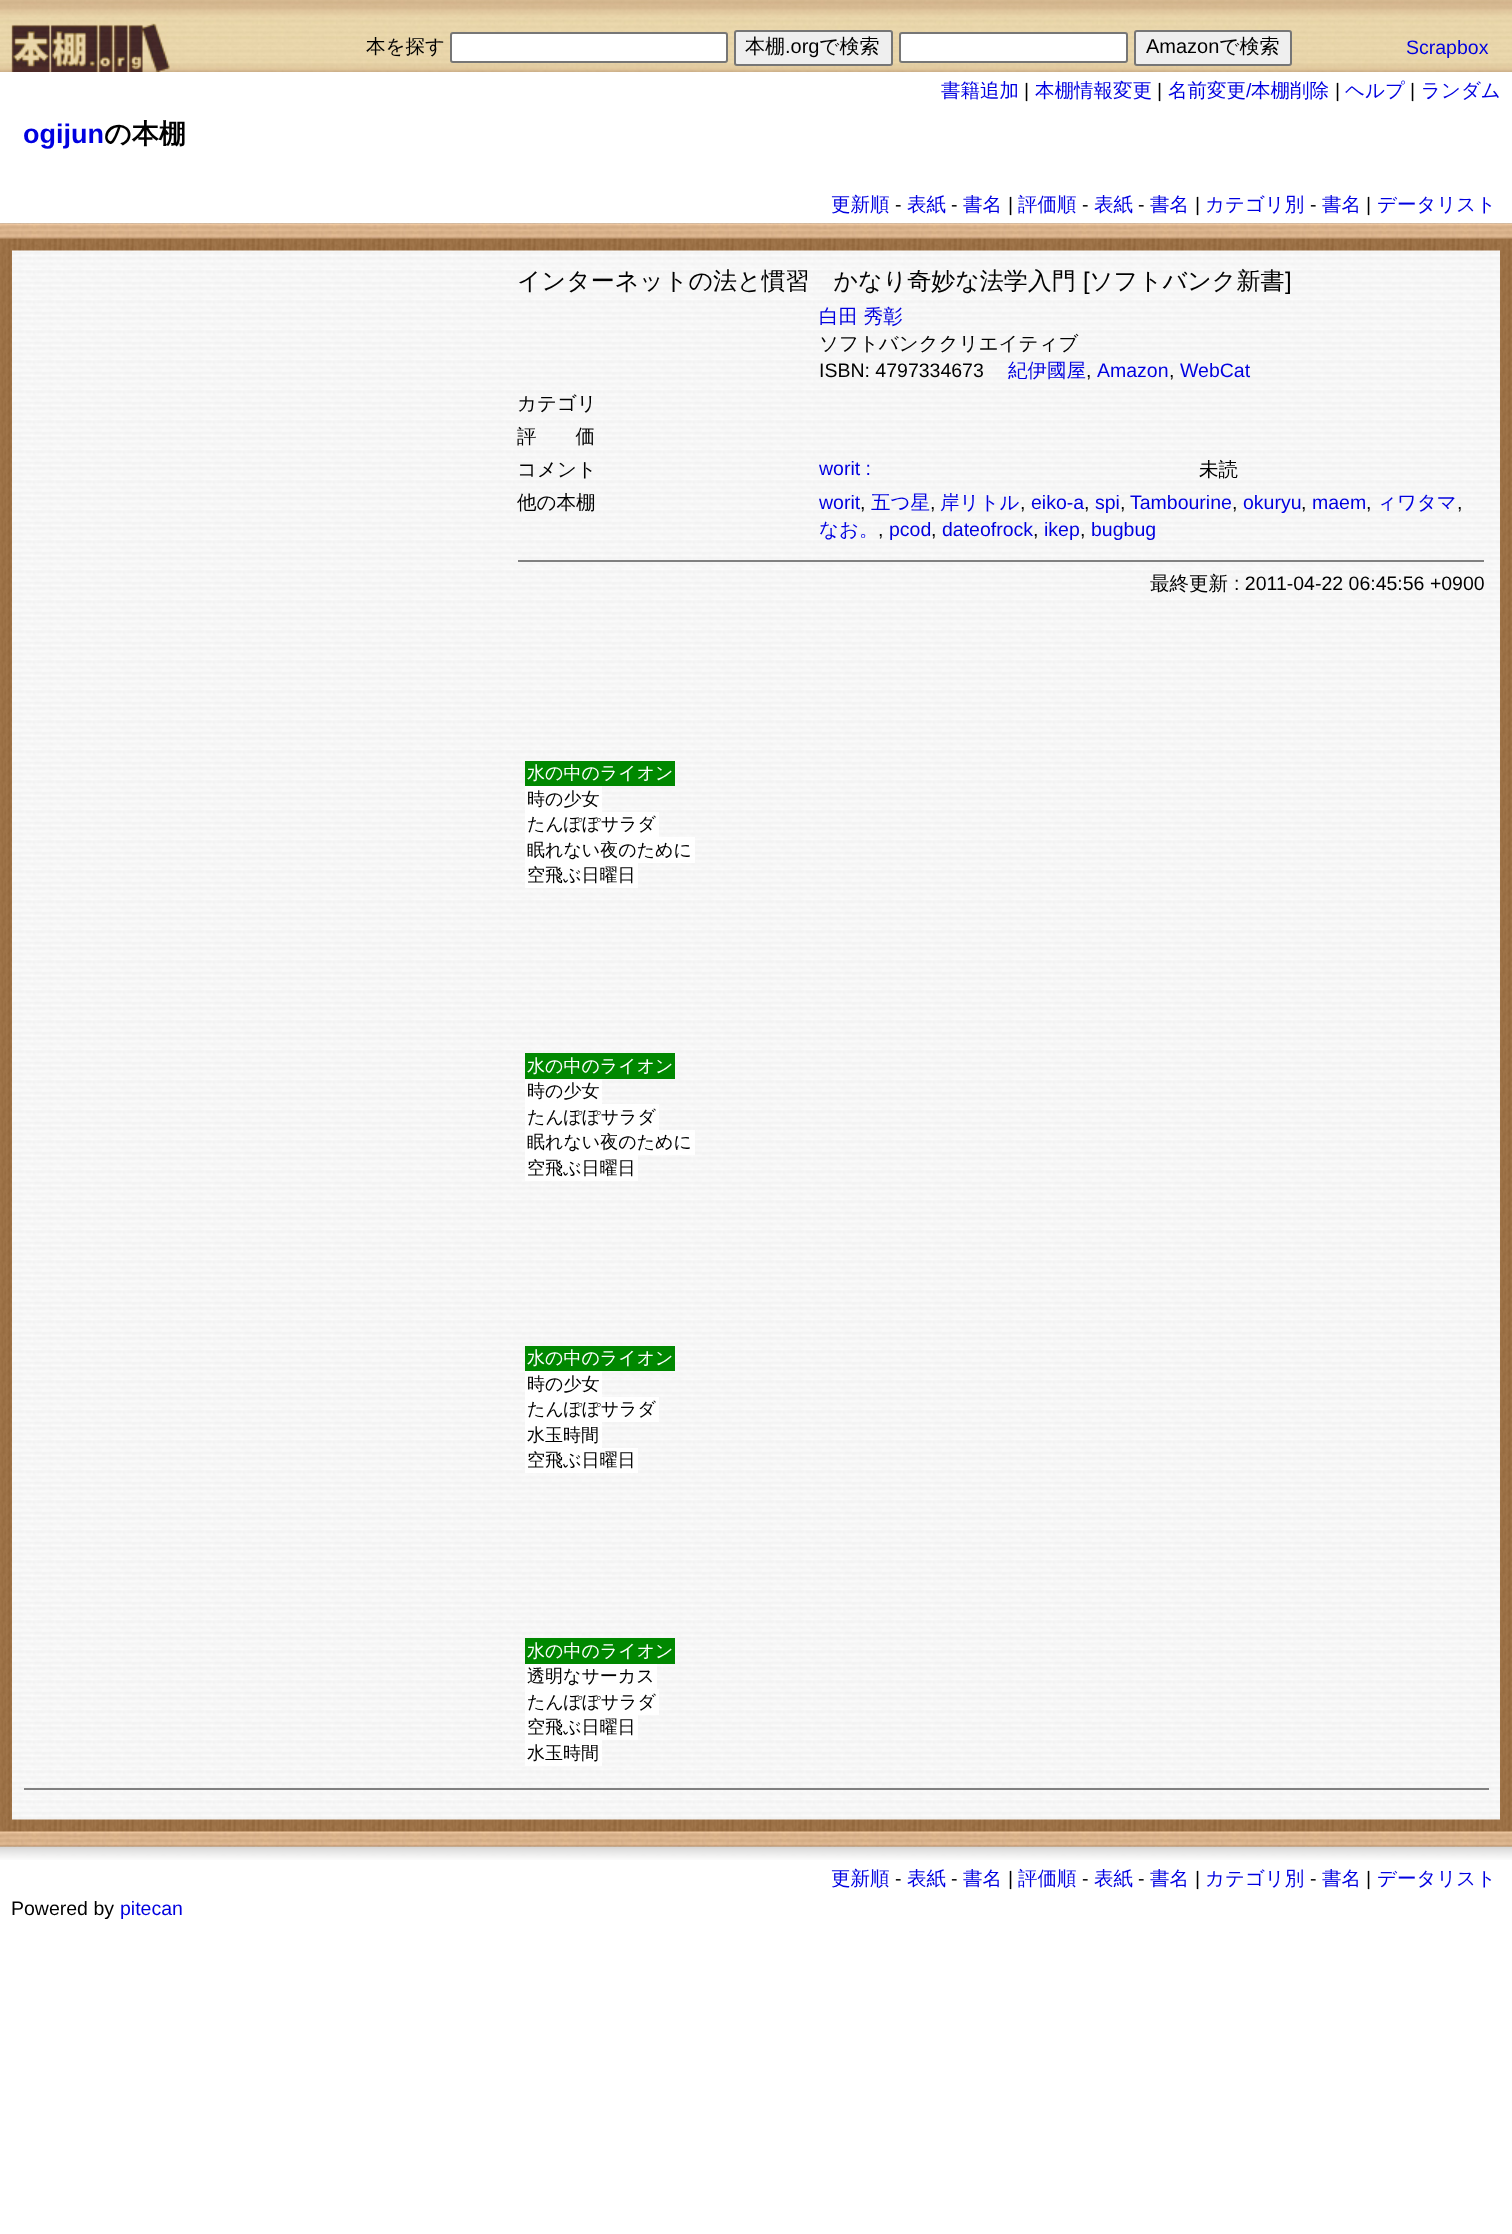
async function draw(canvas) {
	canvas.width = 1512;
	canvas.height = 2234;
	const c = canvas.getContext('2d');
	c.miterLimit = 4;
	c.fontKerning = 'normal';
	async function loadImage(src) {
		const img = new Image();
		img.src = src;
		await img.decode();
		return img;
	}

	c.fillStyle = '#fff';
	c.fillRect(0, 0, 1512, 2234);
	c.drawImage(await loadImage('img1.png'), 0, 0, 1512, 72);
	c.font = '500 19.5px WenQuanYi Zen Hei';
	c.fillStyle = '#000';
	c.fillText('本を探す', 366, 53);
	c.fillStyle = '#fff';
	c.beginPath();
	c.roundRect(451, 33, 276, 29, 2);
	c.fill();
	c.strokeStyle = '#767676';
	c.lineWidth = 2;
	c.stroke();
	c.fillStyle = '#efefef';
	c.beginPath();
	c.roundRect(735, 31, 157, 34, 2);
	c.fill();
	c.stroke();
	c.font = '500 20px WenQuanYi Zen Hei';
	c.fillStyle = '#000';
	c.fillText('本棚', 745, 53);
	c.font = '20px Liberation Sans';
	c.fillText('.org', 785, 53);
	c.font = '500 20px WenQuanYi Zen Hei';
	c.fillText('で検索', 819, 53);
	c.fillStyle = '#fff';
	c.beginPath();
	c.roundRect(900, 33, 227, 29, 2);
	c.fill();
	c.stroke();
	c.fillStyle = '#efefef';
	c.beginPath();
	c.roundRect(1135, 31, 156, 34, 2);
	c.fill();
	c.stroke();
	c.font = '20px Liberation Sans';
	c.fillStyle = '#000';
	c.fillText('Amazon', 1146, 53);
	c.font = '500 20px WenQuanYi Zen Hei';
	c.fillText('で検索', 1219, 53);
	c.font = '19.5px Liberation Sans';
	c.fillStyle = '#0000e0';
	c.fillText('Scrapbox', 1406, 54);
	c.font = '500 19.5px WenQuanYi Zen Hei';
	c.fillText('書籍追加', 941, 97);
	c.font = '19.5px Liberation Sans';
	c.fillStyle = '#000';
	c.fillText('|', 1024, 97);
	c.font = '500 19.5px WenQuanYi Zen Hei';
	c.fillStyle = '#0000e0';
	c.fillText('本棚情報変更', 1035, 97);
	c.font = '19.5px Liberation Sans';
	c.fillStyle = '#000';
	c.fillText('|', 1157, 97);
	c.font = '500 19.5px WenQuanYi Zen Hei';
	c.fillStyle = '#0000e0';
	c.fillText('名前変更', 1168, 97);
	c.font = '19.5px Liberation Sans';
	c.fillText('/', 1246, 97);
	c.font = '500 19.5px WenQuanYi Zen Hei';
	c.fillText('本棚削除', 1251, 97);
	c.font = '19.5px Liberation Sans';
	c.fillStyle = '#000';
	c.fillText('|', 1335, 97);
	c.font = '500 19.5px WenQuanYi Zen Hei';
	c.fillStyle = '#0000e0';
	c.fillText('ヘルプ', 1345, 97);
	c.font = '19.5px Liberation Sans';
	c.fillStyle = '#000';
	c.fillText('|', 1410, 97);
	c.font = '500 19.5px WenQuanYi Zen Hei';
	c.fillStyle = '#0000e0';
	c.fillText('ランダム', 1421, 97);
	c.font = 'bold 27px Liberation Sans';
	c.fillText('ogijun', 23, 143);
	c.font = 'bold 27px WenQuanYi Zen Hei';
	c.fillStyle = '#000';
	c.fillText('の本棚', 104, 143);
	c.font = '500 19.5px WenQuanYi Zen Hei';
	c.fillStyle = '#0000e0';
	c.fillText('更新順', 831, 211);
	c.font = '19.5px Liberation Sans';
	c.fillStyle = '#000';
	c.fillText('-', 895, 211);
	c.font = '500 19.5px WenQuanYi Zen Hei';
	c.fillStyle = '#0000e0';
	c.fillText('表紙', 907, 211);
	c.font = '19.5px Liberation Sans';
	c.fillStyle = '#000';
	c.fillText('-', 951, 211);
	c.font = '500 19.5px WenQuanYi Zen Hei';
	c.fillStyle = '#0000e0';
	c.fillText('書名', 963, 211);
	c.font = '19.5px Liberation Sans';
	c.fillStyle = '#000';
	c.fillText('|', 1008, 211);
	c.font = '500 19.5px WenQuanYi Zen Hei';
	c.fillStyle = '#0000e0';
	c.fillText('評価順', 1018, 211);
	c.font = '19.5px Liberation Sans';
	c.fillStyle = '#000';
	c.fillText('-', 1082, 211);
	c.font = '500 19.5px WenQuanYi Zen Hei';
	c.fillStyle = '#0000e0';
	c.fillText('表紙', 1094, 211);
	c.font = '19.5px Liberation Sans';
	c.fillStyle = '#000';
	c.fillText('-', 1138, 211);
	c.font = '500 19.5px WenQuanYi Zen Hei';
	c.fillStyle = '#0000e0';
	c.fillText('書名', 1150, 211);
	c.font = '19.5px Liberation Sans';
	c.fillStyle = '#000';
	c.fillText('|', 1195, 211);
	c.font = '500 19.5px WenQuanYi Zen Hei';
	c.fillStyle = '#0000e0';
	c.fillText('カテゴリ別', 1205, 211);
	c.font = '19.5px Liberation Sans';
	c.fillStyle = '#000';
	c.fillText('-', 1310, 211);
	c.font = '500 19.5px WenQuanYi Zen Hei';
	c.fillStyle = '#0000e0';
	c.fillText('書名', 1322, 211);
	c.font = '19.5px Liberation Sans';
	c.fillStyle = '#000';
	c.fillText('|', 1366, 211);
	c.font = '500 19.5px WenQuanYi Zen Hei';
	c.fillStyle = '#0000e0';
	c.fillText('データリスト', 1377, 211);
	c.drawImage(await loadImage('img6.png'), 0, 1846, 1512, 14);
	c.drawImage(await loadImage('img2.png'), 0, 223, 1512, 1624);
	c.drawImage(await loadImage('img3.png'), 0, 223, 1512, 16);
	c.drawImage(await loadImage('img4.png'), 12, 250, 1488, 1570);
	c.font = '500 24px WenQuanYi Zen Hei';
	c.fillStyle = '#000';
	c.fillText('インターネットの法と慣習　かなり奇妙な法学入門', 517, 289);
	c.font = '24px Liberation Sans';
	c.fillText('[', 1083, 289);
	c.font = '500 24px WenQuanYi Zen Hei';
	c.fillText('ソフトバンク新書', 1089, 289);
	c.font = '24px Liberation Sans';
	c.fillText(']', 1285, 289);
	c.font = '500 19.5px WenQuanYi Zen Hei';
	c.fillStyle = '#0000e0';
	c.fillText('白田 秀彰', 819, 323);
	c.fillStyle = '#000';
	c.fillText('ソフトバンククリエイティブ', 819, 350);
	c.font = '19.5px Liberation Sans';
	c.fillText('ISBN: 4797334673', 819, 377);
	c.font = '500 19.5px WenQuanYi Zen Hei';
	c.fillStyle = '#0000e0';
	c.fillText('紀伊國屋', 1008, 377);
	c.font = '19.5px Liberation Sans';
	c.fillStyle = '#000';
	c.fillText(',', 1086, 377);
	c.fillStyle = '#0000e0';
	c.fillText('Amazon', 1097, 377);
	c.fillStyle = '#000';
	c.fillText(',', 1169, 377);
	c.fillStyle = '#0000e0';
	c.fillText('WebCat', 1180, 377);
	c.font = '500 19.5px WenQuanYi Zen Hei';
	c.fillStyle = '#000';
	for (const [text, x, y] of [
		['カテゴリ', 517, 410],
		['評　　価', 517, 443],
		['コメント', 517, 476],
	]) {
		c.fillText(text, x, y);
	}
	c.font = '19.5px Liberation Sans';
	c.fillStyle = '#0000e0';
	c.fillText('worit :', 819, 475);
	c.font = '500 19.5px WenQuanYi Zen Hei';
	c.fillStyle = '#000';
	c.fillText('未読', 1199, 476);
	c.fillText('他の本棚', 517, 509);
	c.font = '19.5px Liberation Sans';
	c.fillStyle = '#0000e0';
	c.fillText('worit', 819, 509);
	c.fillStyle = '#000';
	c.fillText(',', 860, 509);
	c.font = '500 19.5px WenQuanYi Zen Hei';
	c.fillStyle = '#0000e0';
	c.fillText('五つ星', 871, 509);
	c.font = '19.5px Liberation Sans';
	c.fillStyle = '#000';
	c.fillText(',', 930, 509);
	c.font = '500 19.5px WenQuanYi Zen Hei';
	c.fillStyle = '#0000e0';
	c.fillText('岸リトル', 940, 509);
	c.font = '19.5px Liberation Sans';
	c.fillStyle = '#000';
	c.fillText(',', 1020, 509);
	c.fillStyle = '#0000e0';
	c.fillText('eiko-a', 1031, 509);
	c.fillStyle = '#000';
	c.fillText(',', 1084, 509);
	c.fillStyle = '#0000e0';
	c.fillText('spi', 1095, 509);
	c.fillStyle = '#000';
	c.fillText(',', 1120, 509);
	c.fillStyle = '#0000e0';
	c.fillText('Tambourine', 1130, 509);
	c.fillStyle = '#000';
	c.fillText(',', 1232, 509);
	c.fillStyle = '#0000e0';
	c.fillText('okuryu', 1243, 509);
	c.fillStyle = '#000';
	c.fillText(',', 1301, 509);
	c.fillStyle = '#0000e0';
	c.fillText('maem', 1312, 509);
	c.fillStyle = '#000';
	c.fillText(',', 1366, 509);
	c.font = '500 19.5px WenQuanYi Zen Hei';
	c.fillStyle = '#0000e0';
	c.fillText('ィワタマ', 1377, 509);
	c.font = '19.5px Liberation Sans';
	c.fillStyle = '#000';
	c.fillText(',', 1457, 509);
	c.font = '500 19.5px WenQuanYi Zen Hei';
	c.fillStyle = '#0000e0';
	c.fillText('なお。', 819, 536);
	c.font = '19.5px Liberation Sans';
	c.fillStyle = '#000';
	c.fillText(',', 878, 536);
	c.fillStyle = '#0000e0';
	c.fillText('pcod', 889, 536);
	c.fillStyle = '#000';
	c.fillText(',', 931, 536);
	c.fillStyle = '#0000e0';
	c.fillText('dateofrock', 942, 536);
	c.fillStyle = '#000';
	c.fillText(',', 1033, 536);
	c.fillStyle = '#0000e0';
	c.fillText('ikep', 1044, 536);
	c.fillStyle = '#000';
	c.fillText(',', 1080, 536);
	c.fillStyle = '#0000e0';
	c.fillText('bugbug', 1091, 536);
	c.fillStyle = '#808080';
	c.fillRect(518, 560, 966, 2);
	c.font = '500 19.5px WenQuanYi Zen Hei';
	c.fillStyle = '#000';
	c.fillText('最終更新', 1150, 590);
	c.font = '19.5px Liberation Sans';
	c.fillText(': 2011-04-22 06:45:56 +0900', 1234, 590);
	c.fillStyle = '#080';
	c.fillRect(525, 761, 150, 25);
	c.font = '500 18px WenQuanYi Zen Hei';
	c.fillStyle = '#fff';
	c.fillText('水の中のライオン', 527, 779);
	c.fillRect(525, 786, 77, 26);
	c.fillStyle = '#000';
	c.fillText('時の少女', 527, 805);
	c.fillStyle = '#fff';
	c.fillRect(525, 812, 134, 25);
	c.fillStyle = '#000';
	c.fillText('たんぽぽサラダ', 527, 830);
	c.fillStyle = '#fff';
	c.fillRect(525, 837, 170, 26);
	c.fillStyle = '#000';
	c.fillText('眠れない夜のために', 527, 856);
	c.fillStyle = '#fff';
	c.fillRect(525, 863, 113, 25);
	c.fillStyle = '#000';
	c.fillText('空飛ぶ日曜日', 527, 881);
	c.fillStyle = '#080';
	c.fillRect(525, 1053, 150, 26);
	c.fillStyle = '#fff';
	c.fillText('水の中のライオン', 527, 1072);
	c.fillRect(525, 1079, 77, 25);
	c.fillStyle = '#000';
	c.fillText('時の少女', 527, 1097);
	c.fillStyle = '#fff';
	c.fillRect(525, 1104, 134, 26);
	c.fillStyle = '#000';
	c.fillText('たんぽぽサラダ', 527, 1123);
	c.fillStyle = '#fff';
	c.fillRect(525, 1130, 170, 25);
	c.fillStyle = '#000';
	c.fillText('眠れない夜のために', 527, 1148);
	c.fillStyle = '#fff';
	c.fillRect(525, 1155, 113, 26);
	c.fillStyle = '#000';
	c.fillText('空飛ぶ日曜日', 527, 1174);
	c.fillStyle = '#080';
	c.fillRect(525, 1346, 150, 25);
	c.fillStyle = '#fff';
	c.fillText('水の中のライオン', 527, 1364);
	c.fillRect(525, 1371, 77, 26);
	c.fillStyle = '#000';
	c.fillText('時の少女', 527, 1390);
	c.fillStyle = '#fff';
	c.fillRect(525, 1397, 134, 25);
	c.fillStyle = '#000';
	c.fillText('たんぽぽサラダ', 527, 1415);
	c.fillStyle = '#fff';
	c.fillRect(525, 1422, 77, 26);
	c.fillStyle = '#000';
	c.fillText('水玉時間', 527, 1441);
	c.fillStyle = '#fff';
	c.fillRect(525, 1448, 113, 25);
	c.fillStyle = '#000';
	c.fillText('空飛ぶ日曜日', 527, 1466);
	c.fillStyle = '#080';
	c.fillRect(525, 1638, 150, 26);
	c.fillStyle = '#fff';
	c.fillText('水の中のライオン', 527, 1657);
	c.fillRect(525, 1664, 132, 25);
	c.fillStyle = '#000';
	c.fillText('透明なサーカス', 527, 1682);
	c.fillStyle = '#fff';
	c.fillRect(525, 1689, 134, 26);
	c.fillStyle = '#000';
	c.fillText('たんぽぽサラダ', 527, 1708);
	c.fillStyle = '#fff';
	c.fillRect(525, 1715, 113, 25);
	c.fillStyle = '#000';
	c.fillText('空飛ぶ日曜日', 527, 1733);
	c.fillStyle = '#fff';
	c.fillRect(525, 1740, 77, 26);
	c.fillStyle = '#000';
	c.fillText('水玉時間', 527, 1759);
	c.fillStyle = '#808080';
	c.fillRect(24, 1788, 1465, 2);
	c.drawImage(await loadImage('img5.png'), 0, 1831, 1512, 16);
	c.font = '500 19.5px WenQuanYi Zen Hei';
	c.fillStyle = '#0000e0';
	c.fillText('更新順', 831, 1885);
	c.font = '19.5px Liberation Sans';
	c.fillStyle = '#000';
	c.fillText('-', 895, 1885);
	c.font = '500 19.5px WenQuanYi Zen Hei';
	c.fillStyle = '#0000e0';
	c.fillText('表紙', 907, 1885);
	c.font = '19.5px Liberation Sans';
	c.fillStyle = '#000';
	c.fillText('-', 951, 1885);
	c.font = '500 19.5px WenQuanYi Zen Hei';
	c.fillStyle = '#0000e0';
	c.fillText('書名', 963, 1885);
	c.font = '19.5px Liberation Sans';
	c.fillStyle = '#000';
	c.fillText('|', 1008, 1885);
	c.font = '500 19.5px WenQuanYi Zen Hei';
	c.fillStyle = '#0000e0';
	c.fillText('評価順', 1018, 1885);
	c.font = '19.5px Liberation Sans';
	c.fillStyle = '#000';
	c.fillText('-', 1082, 1885);
	c.font = '500 19.5px WenQuanYi Zen Hei';
	c.fillStyle = '#0000e0';
	c.fillText('表紙', 1094, 1885);
	c.font = '19.5px Liberation Sans';
	c.fillStyle = '#000';
	c.fillText('-', 1138, 1885);
	c.font = '500 19.5px WenQuanYi Zen Hei';
	c.fillStyle = '#0000e0';
	c.fillText('書名', 1150, 1885);
	c.font = '19.5px Liberation Sans';
	c.fillStyle = '#000';
	c.fillText('|', 1195, 1885);
	c.font = '500 19.5px WenQuanYi Zen Hei';
	c.fillStyle = '#0000e0';
	c.fillText('カテゴリ別', 1205, 1885);
	c.font = '19.5px Liberation Sans';
	c.fillStyle = '#000';
	c.fillText('-', 1310, 1885);
	c.font = '500 19.5px WenQuanYi Zen Hei';
	c.fillStyle = '#0000e0';
	c.fillText('書名', 1322, 1885);
	c.font = '19.5px Liberation Sans';
	c.fillStyle = '#000';
	c.fillText('|', 1366, 1885);
	c.font = '500 19.5px WenQuanYi Zen Hei';
	c.fillStyle = '#0000e0';
	c.fillText('データリスト', 1377, 1885);
	c.font = '19.5px Liberation Sans';
	c.fillStyle = '#000';
	c.fillText('Powered by', 11, 1915);
	c.fillStyle = '#0000e0';
	c.fillText('pitecan', 120, 1915);
}

draw(document.querySelector('canvas'));
